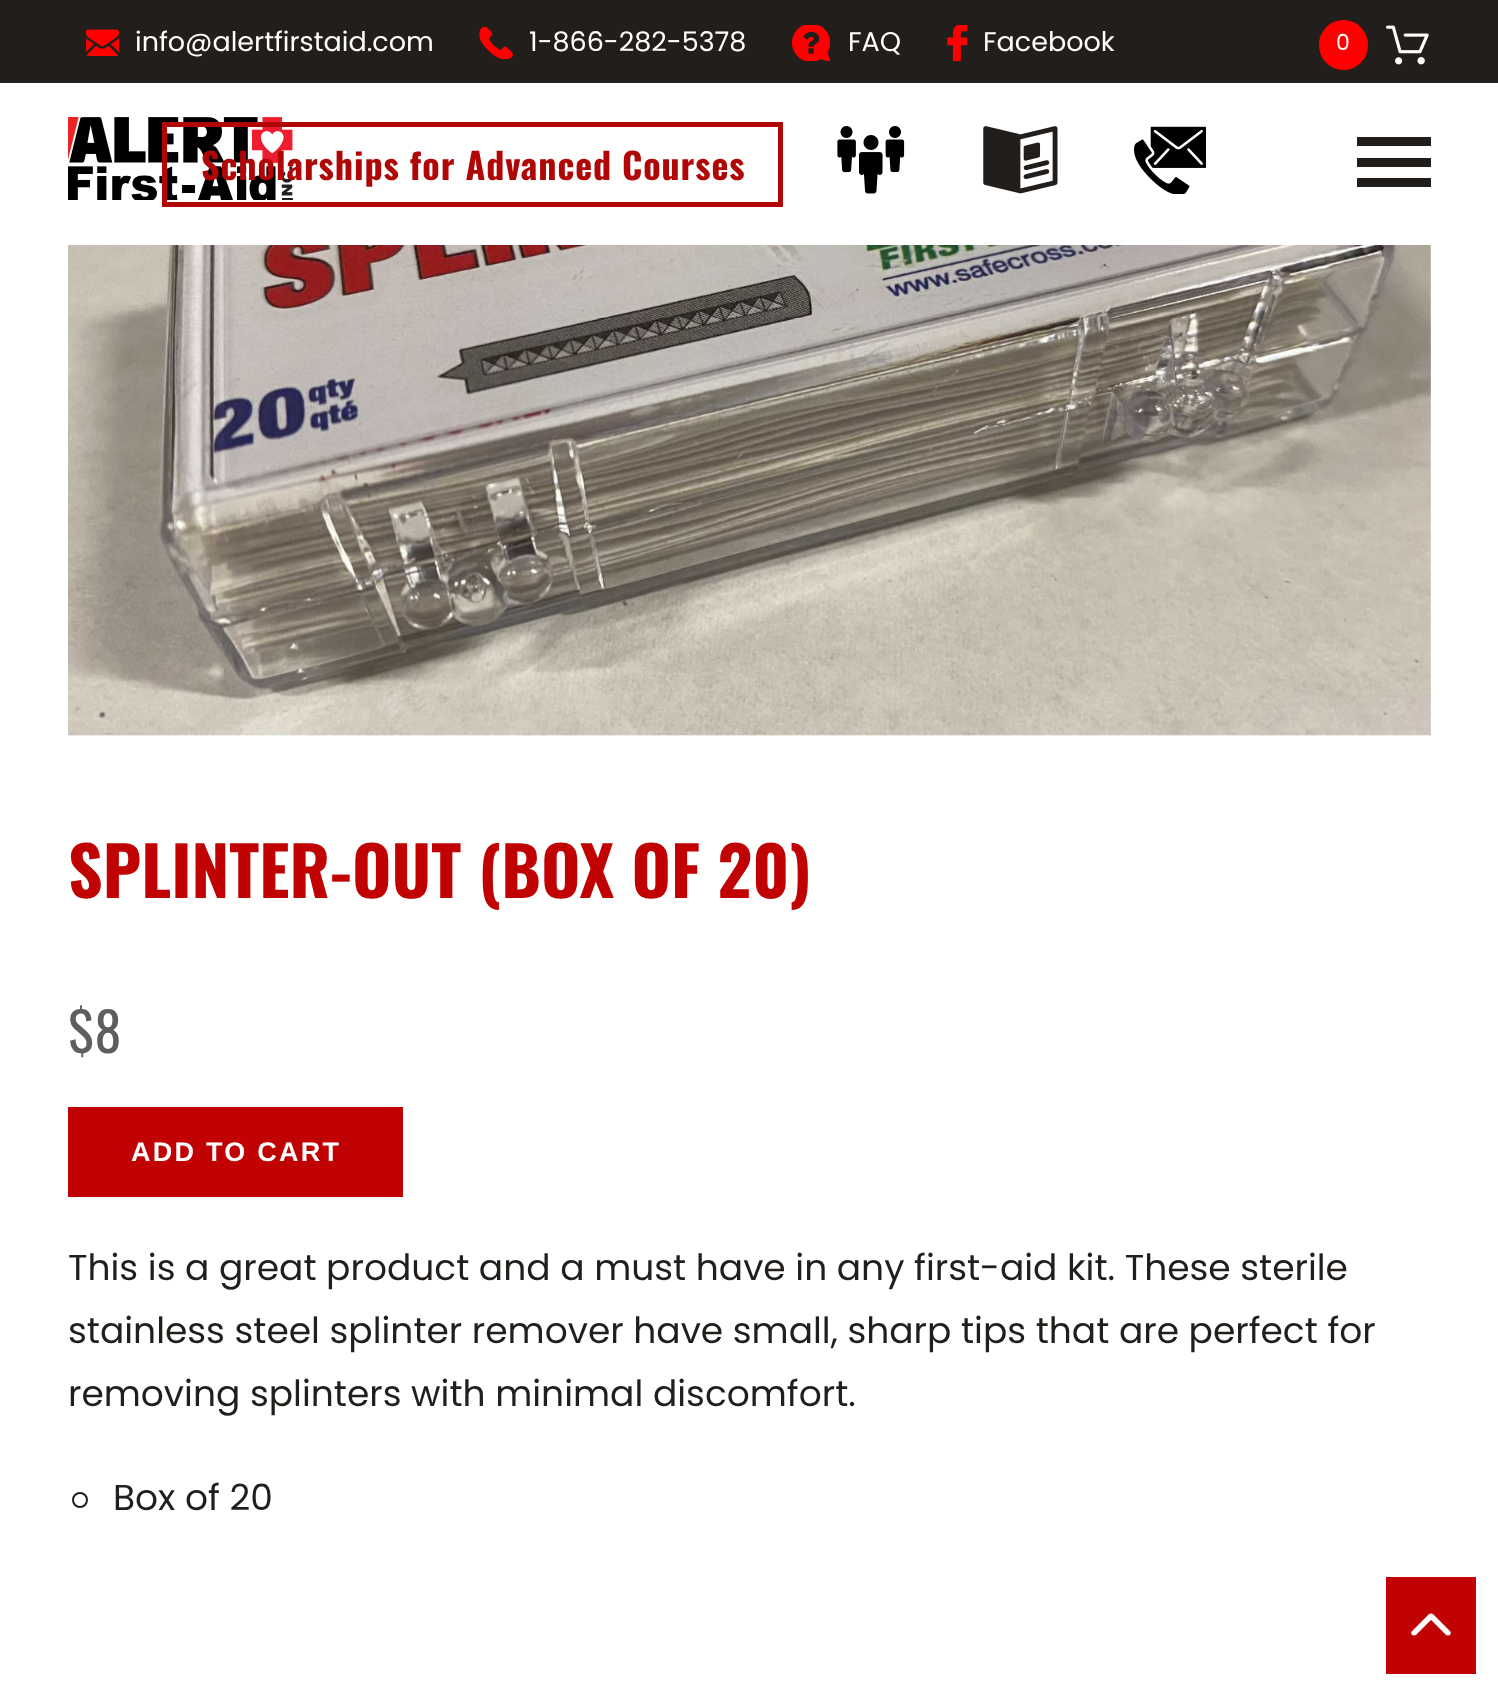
async function draw(canvas) {
	canvas.width = 1498;
	canvas.height = 1695;
	const c = canvas.getContext('2d');
	c.miterLimit = 4;
	c.fontKerning = 'normal';
	async function loadImage(src) {
		const img = new Image();
		img.src = src;
		await img.decode();
		return img;
	}

	c.fillStyle = '#fff';
	c.fillRect(0, 0, 1498, 1695);
	c.fillStyle = '#211e1b';
	c.fillRect(0, 0, 1498, 83);
	c.drawImage(await loadImage('img1.png'), 86, 29, 33, 27);
	c.font = '27px Poppins';
	c.fillStyle = '#fff';
	c.fillText('info@alertfirstaid.com', 135, 51);
	c.drawImage(await loadImage('img2.png'), 479, 27, 34, 32);
	c.fillText('1-866-282-5378', 529, 51);
	c.drawImage(await loadImage('img3.png'), 792, 25, 38, 36);
	c.fillText('FAQ', 848, 51);
	c.drawImage(await loadImage('img4.png'), 947, 25, 21, 36);
	c.fillText('Facebook', 983, 51);
	c.fillStyle = '#f00';
	c.beginPath();
	c.roundRect(1319, 20, 49, 50, 24.5);
	c.fill();
	c.font = '22px Poppins';
	c.fillStyle = '#fff';
	c.fillText('0', 1336, 50);
	c.drawImage(await loadImage('img5.png'), 1386, 25, 43, 40);
	c.drawImage(await loadImage('img6.png'), 68, 117, 225, 83);
	c.strokeStyle = '#b10606';
	c.lineWidth = 5;
	c.strokeRect(164.5, 124.5, 616, 80);
	c.letterSpacing = '0.9px';
	c.font = 'bold 36px Oswald';
	c.fillStyle = '#b10606';
	c.fillText('Scholarships for Advanced Courses', 201, 180);
	c.drawImage(await loadImage('img7.png'), 837, 126, 68, 68);
	c.drawImage(await loadImage('img8.png'), 983, 126, 75, 68);
	c.drawImage(await loadImage('img9.png'), 1134, 126, 72, 68);
	for (const [x, y, w, h, color] of [
		[1357, 137, 74, 9, '#211e1b'],
		[1357, 158, 74, 9, '#211e1b'],
		[1357, 178, 74, 9, '#211e1b'],
	]) {
		c.fillStyle = color;
		c.fillRect(x, y, w, h);
	}
	c.drawImage(await loadImage('img10.png'), 68, 245, 1363, 491);
	c.letterSpacing = '0px';
	c.font = 'bold 67.5px Oswald';
	c.fillStyle = '#c10202';
	c.fillText('SPLINTER-OUT (BOX OF 20)', 68, 898);
	c.font = '54px Oswald';
	c.fillStyle = '#5e5e5e';
	c.fillText('$8', 68, 1053);
	c.fillStyle = '#c10202';
	c.fillRect(68, 1107, 335, 90);
	c.letterSpacing = '2.25px';
	c.font = 'bold 27px Liberation Sans';
	c.fillStyle = '#fff';
	c.fillText('ADD TO CART', 131, 1161);
	c.letterSpacing = '0px';
	c.font = '36px Poppins';
	c.fillStyle = '#211e1b';
	for (const [text, x, y] of [
		['This is a great product and a must have in any first-aid kit. These sterile', 68, 1280],
		['stainless steel splinter remover have small, sharp tips that are perfect for', 68, 1343],
		['removing splinters with minimal discomfort.', 68, 1406],
	]) {
		c.fillText(text, x, y);
	}
	c.beginPath();
	c.arc(80, 1500, 7, 0, 2 * Math.PI);
	c.strokeStyle = '#211e1b';
	c.lineWidth = 2;
	c.stroke();
	c.fillText('Box of 20', 113, 1510);
	c.fillStyle = '#c10202';
	c.fillRect(1386, 1577, 90, 97);
	c.drawImage(await loadImage('img11.png'), 1411, 1613, 40, 23);
}

draw(document.querySelector('canvas'));
